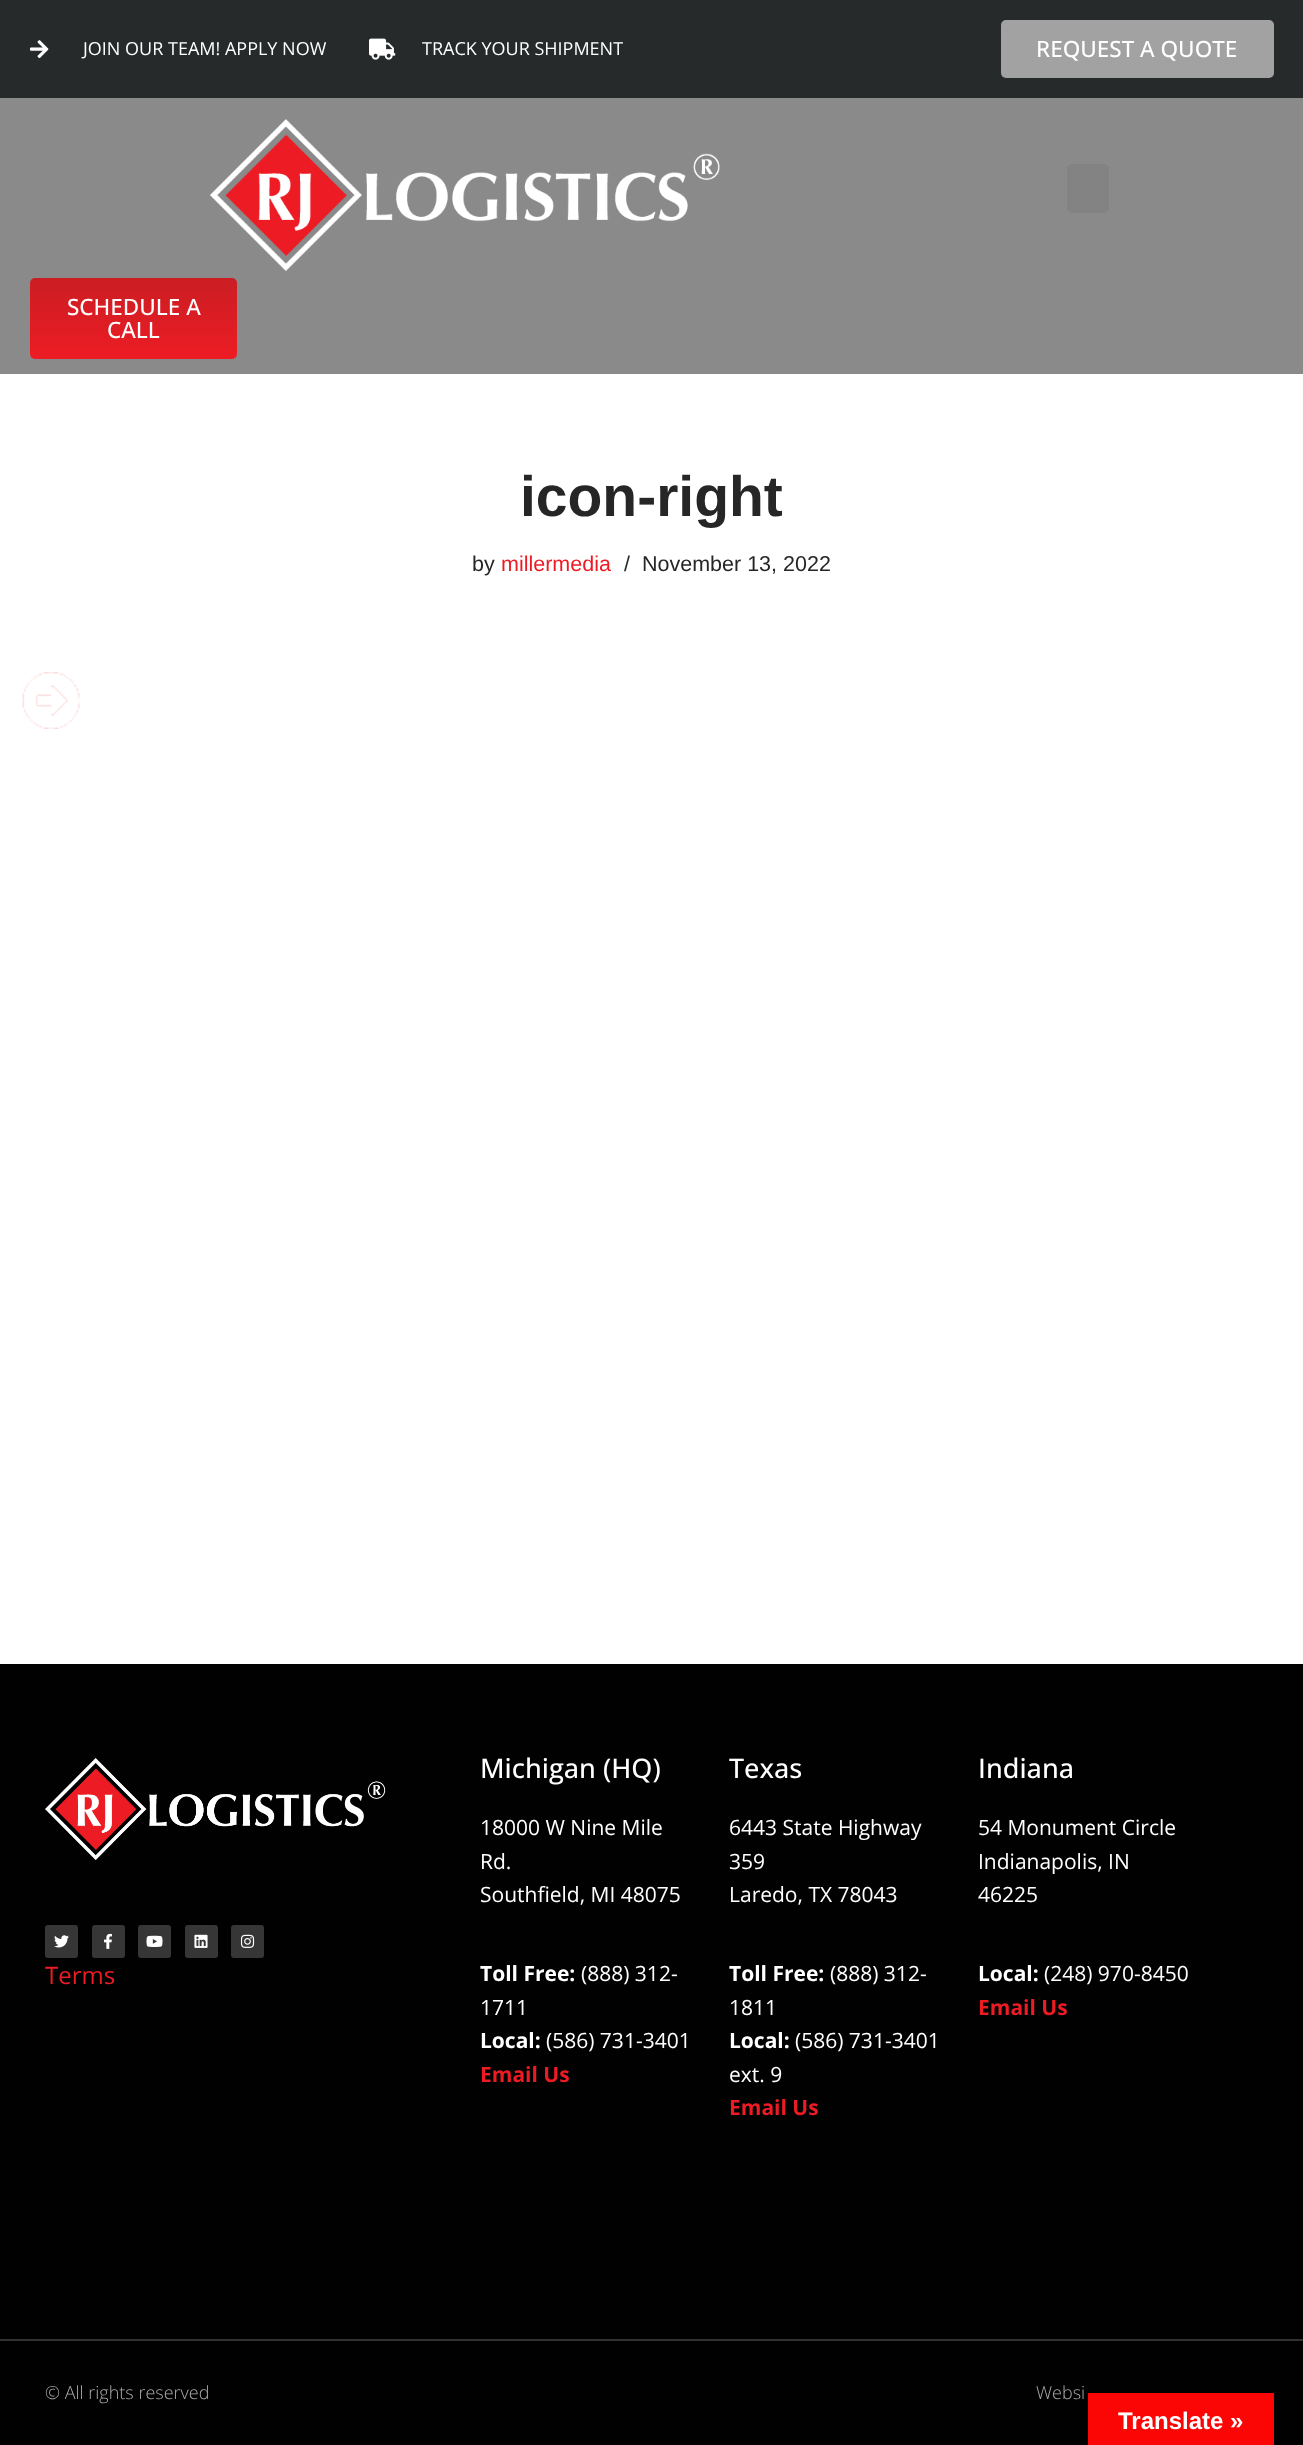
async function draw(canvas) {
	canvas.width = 1303;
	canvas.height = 2445;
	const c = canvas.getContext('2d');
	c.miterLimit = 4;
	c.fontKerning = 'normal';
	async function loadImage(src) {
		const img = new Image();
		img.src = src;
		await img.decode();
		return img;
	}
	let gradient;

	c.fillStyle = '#fff';
	c.fillRect(0, 0, 1303, 2445);
	c.fillStyle = '#262a2b';
	c.fillRect(0, 0, 1303, 98);
	c.drawImage(await loadImage('img1.png'), 30, 40, 19, 19);
	c.font = '18px Open Sans';
	c.fillStyle = '#fff';
	c.fillText('JOIN OUR TEAM! APPLY NOW', 83, 55);
	c.drawImage(await loadImage('img2.png'), 369, 38, 27, 22);
	c.fillText('TRACK YOUR SHIPMENT', 422, 55);
	c.fillStyle = '#a2a2a2';
	c.beginPath();
	c.roundRect(1001, 20, 273, 58, 5);
	c.fill();
	c.font = '500 22.5px Open Sans';
	c.fillStyle = '#fff';
	c.fillText('REQUEST A QUOTE', 1036, 57);
	c.fillStyle = '#8a8a8a';
	c.fillRect(0, 98, 1303, 276);
	c.drawImage(await loadImage('img3.png'), 210, 119, 510, 152);
	c.fillStyle = '#838383';
	c.beginPath();
	c.roundRect(1067, 164, 42, 49, 5);
	c.fill();
	gradient = c.createLinearGradient(134, 278, 134, 359);
	gradient.addColorStop(0, '#ca1e23');
	gradient.addColorStop(1, '#ed1c24');
	c.fillStyle = gradient;
	c.beginPath();
	c.roundRect(30, 278, 207, 81, 5);
	c.fill();
	c.fillStyle = '#fff';
	c.fillText('SCHEDULE A', 67, 315);
	c.fillText('CALL', 107, 338);
	c.font = 'bold 57px Liberation Sans';
	c.fillStyle = '#272626';
	c.fillText('icon-right', 520, 516);
	c.font = '21.5px Liberation Sans';
	c.fillText('by', 472, 571);
	c.fillStyle = '#ed1c24';
	c.fillText('millermedia', 501, 571);
	c.fillStyle = '#272626';
	c.fillText('/', 624, 571);
	c.fillText('November 13, 2022', 642, 571);
	c.drawImage(await loadImage('img4.png'), 22, 672, 58, 57);
	c.fillStyle = '#010101';
	c.fillRect(0, 1664, 1303, 675);
	c.drawImage(await loadImage('img5.png'), 45, 1758, 341, 102);
	c.fillStyle = '#363636';
	c.beginPath();
	c.roundRect(45, 1925, 33, 33, 3);
	c.fill();
	c.drawImage(await loadImage('img6.png'), 54, 1935, 15, 13);
	c.beginPath();
	c.roundRect(92, 1925, 33, 33, 3);
	c.fill();
	c.drawImage(await loadImage('img7.png'), 104, 1933, 8, 16);
	c.beginPath();
	c.roundRect(138, 1925, 33, 33, 3);
	c.fill();
	c.drawImage(await loadImage('img8.png'), 146, 1935, 17, 12);
	c.beginPath();
	c.roundRect(185, 1925, 33, 33, 3);
	c.fill();
	c.drawImage(await loadImage('img9.png'), 194, 1934, 14, 14);
	c.beginPath();
	c.roundRect(231, 1925, 33, 33, 3);
	c.fill();
	c.drawImage(await loadImage('img10.png'), 240, 1934, 15, 14);
	c.font = '24px Open Sans';
	c.fillStyle = '#ed1c24';
	c.fillText('Terms', 45, 1984);
	c.font = '500 27px Open Sans';
	c.fillStyle = '#fff';
	c.fillText('Michigan (HQ)', 480, 1778);
	c.font = '21px Open Sans';
	for (const [text, x, y] of [
		['18000 W Nine Mile', 480, 1835],
		['Rd.', 480, 1869],
		['Southfield, MI 48075', 480, 1902],
	]) {
		c.fillText(text, x, y);
	}
	c.font = 'bold 21px Open Sans';
	c.fillText('Toll Free:', 480, 1981);
	c.font = '21px Open Sans';
	c.fillText('(888) 312-', 581, 1981);
	c.fillText('1711', 480, 2015);
	c.font = 'bold 21px Open Sans';
	c.fillText('Local:', 480, 2048);
	c.font = '21px Open Sans';
	c.fillText('(586) 731-3401', 546, 2048);
	c.font = 'bold 21px Open Sans';
	c.fillStyle = '#ed1c24';
	c.fillText('Email Us', 480, 2082);
	c.font = '500 27px Open Sans';
	c.fillStyle = '#fff';
	c.fillText('Texas', 729, 1778);
	c.font = '21px Open Sans';
	for (const [text, x, y] of [
		['6443 State Highway', 729, 1835],
		['359', 729, 1869],
		['Laredo, TX 78043', 729, 1902],
	]) {
		c.fillText(text, x, y);
	}
	c.font = 'bold 21px Open Sans';
	c.fillText('Toll Free:', 729, 1981);
	c.font = '21px Open Sans';
	c.fillText('(888) 312-', 830, 1981);
	c.fillText('1811', 729, 2015);
	c.font = 'bold 21px Open Sans';
	c.fillText('Local:', 729, 2048);
	c.font = '21px Open Sans';
	c.fillText('(586) 731-3401', 795, 2048);
	c.fillText('ext. 9', 729, 2082);
	c.font = 'bold 21px Open Sans';
	c.fillStyle = '#ed1c24';
	c.fillText('Email Us', 729, 2115);
	c.font = '500 27px Open Sans';
	c.fillStyle = '#fff';
	c.fillText('Indiana', 978, 1778);
	c.font = '21px Open Sans';
	for (const [text, x, y] of [
		['54 Monument Circle', 978, 1835],
		['Indianapolis, IN', 978, 1869],
		['46225', 978, 1902],
	]) {
		c.fillText(text, x, y);
	}
	c.font = 'bold 21px Open Sans';
	c.fillText('Local:', 978, 1981);
	c.font = '21px Open Sans';
	c.fillText('(248) 970-8450', 1044, 1981);
	c.font = 'bold 21px Open Sans';
	c.fillStyle = '#ed1c24';
	c.fillText('Email Us', 978, 2015);
	c.fillStyle = '#010101';
	c.fillRect(0, 2341, 1303, 104);
	c.fillStyle = '#313131';
	c.fillRect(0, 2339, 1303, 2);
	c.font = '300 18px Open Sans';
	c.fillStyle = '#adadad';
	c.fillText('© All rights reserved', 45, 2399);
	c.fillText('Websi', 1036, 2399);
	c.fillStyle = '#fc0505';
	c.fillRect(1088, 2393, 186, 52);
	c.font = 'bold 24px Liberation Sans';
	c.fillStyle = '#fff';
	c.fillText('Translate »', 1118, 2429);
}

draw(document.querySelector('canvas'));
